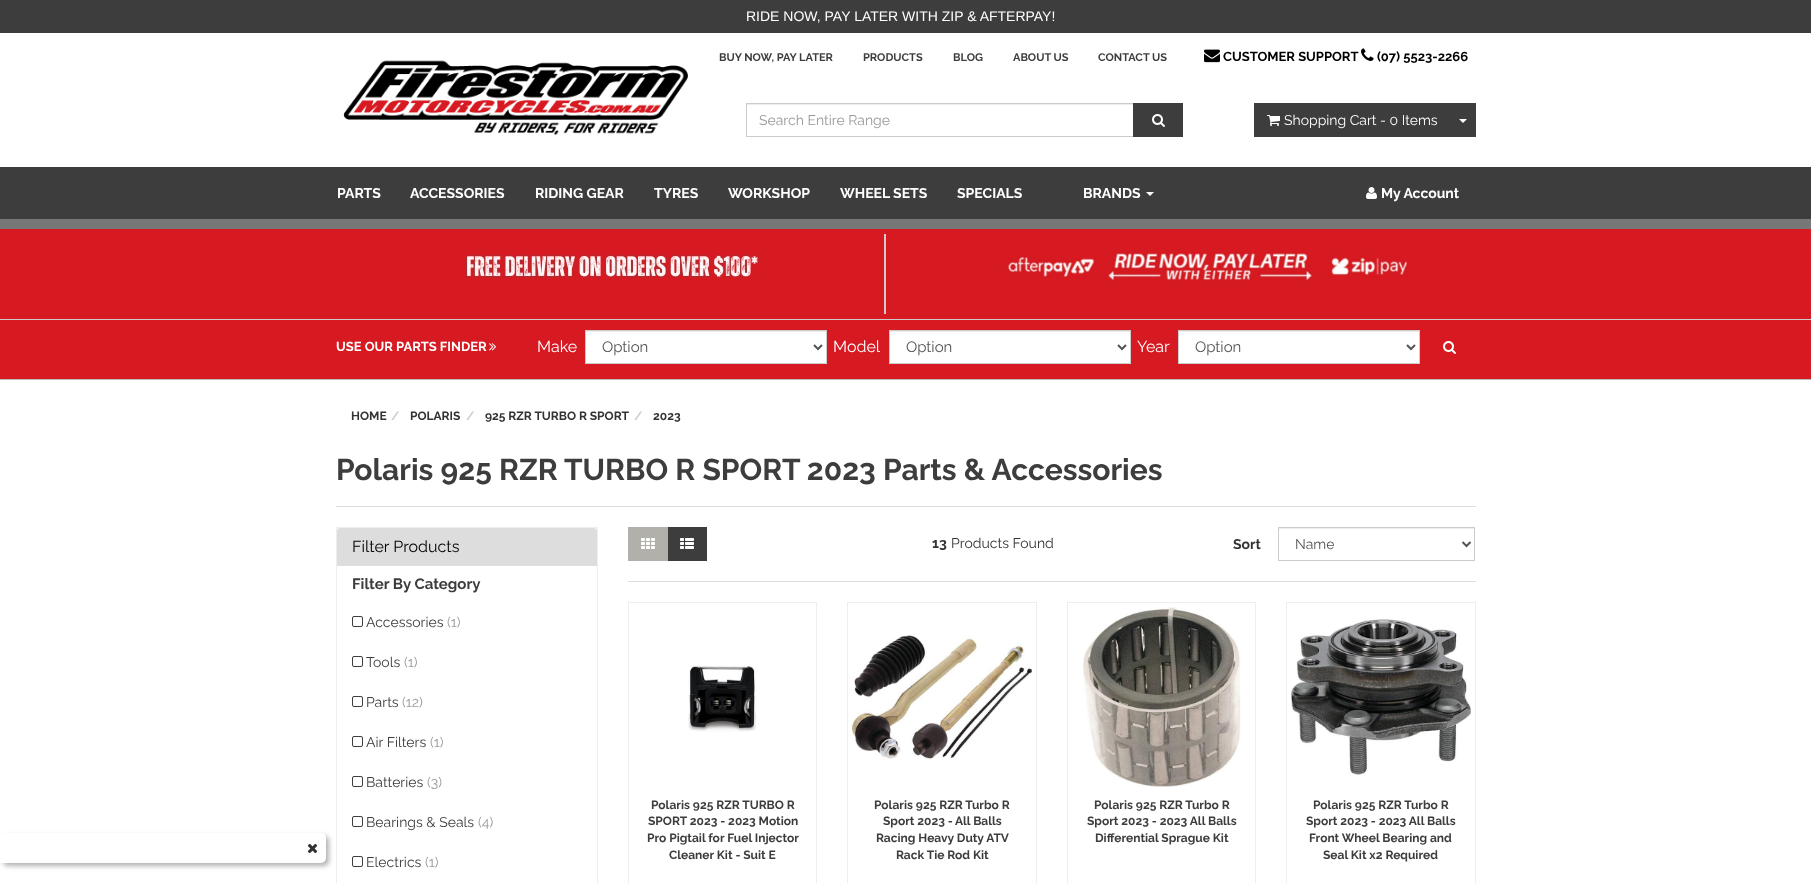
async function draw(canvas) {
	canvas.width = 1811;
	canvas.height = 883;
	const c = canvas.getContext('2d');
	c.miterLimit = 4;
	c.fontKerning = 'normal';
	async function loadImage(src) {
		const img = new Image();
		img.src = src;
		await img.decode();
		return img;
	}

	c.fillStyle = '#fff';
	c.fillRect(0, 0, 1811, 883);
	c.fillStyle = '#3d3d3d';
	c.fillRect(0, 0, 1811, 33);
	c.font = '14px Liberation Sans';
	c.fillStyle = '#fff';
	c.fillText('RIDE NOW, PAY LATER WITH ZIP & AFTERPAY!', 746, 21);
	c.font = 'bold 11px Raleway';
	c.fillStyle = '#3d3d3d';
	for (const [text, x, y] of [
		['BUY NOW, PAY LATER', 719, 61],
		['PRODUCTS', 863, 61],
		['BLOG', 953, 61],
		['ABOUT US', 1013, 61],
		['CONTACT US', 1098, 61],
	]) {
		c.fillText(text, x, y);
	}
	c.drawImage(await loadImage('img1.png'), 1204, 49, 16, 14);
	c.font = 'bold 13px Raleway';
	c.fillStyle = '#000';
	c.fillText('CUSTOMER SUPPORT', 1223, 61);
	c.drawImage(await loadImage('img2.png'), 1361, 48, 13, 13);
	c.fillText('(07) 5523-2266', 1377, 61);
	c.drawImage(await loadImage('img3.png'), 343, 60, 345, 75);
	c.fillStyle = '#ececec';
	c.fillRect(747, 104, 386, 1);
	c.strokeStyle = '#ccc';
	c.strokeRect(746.5, 103.5, 387, 33);
	c.font = '14px Raleway';
	c.fillStyle = '#999';
	c.fillText('Search Entire Range', 759, 125);
	c.fillStyle = '#3d3d3d';
	c.fillRect(1133, 103, 50, 34);
	c.drawImage(await loadImage('img4.png'), 1152, 114, 13, 13);
	c.fillRect(1254, 103, 222, 34);
	c.drawImage(await loadImage('img5.png'), 1267, 115, 13, 11);
	c.fillStyle = '#fff';
	c.fillText('Shopping Cart - 0 Items', 1284, 125);
	c.beginPath();
	c.moveTo(1459, 119);
	c.lineTo(1467, 119);
	c.lineTo(1463, 123);
	c.closePath();
	c.fill();
	c.fillStyle = '#3d3d3d';
	c.fillRect(0, 167, 1811, 52);
	c.fillStyle = '#777';
	c.fillRect(0, 219, 1811, 10);
	c.font = 'bold 14px Raleway';
	c.fillStyle = '#fff';
	for (const [text, x, y] of [
		['PARTS', 337, 198],
		['ACCESSORIES', 410, 198],
		['RIDING GEAR', 535, 198],
		['TYRES', 654, 198],
		['WORKSHOP', 728, 198],
		['WHEEL SETS', 840, 198],
		['SPECIALS', 957, 198],
		['BRANDS', 1083, 198],
	]) {
		c.fillText(text, x, y);
	}
	c.beginPath();
	c.moveTo(1146, 192);
	c.lineTo(1154, 192);
	c.lineTo(1150, 196);
	c.closePath();
	c.fill();
	c.drawImage(await loadImage('img6.png'), 1366, 187, 11, 12);
	c.fillText('My Account', 1381, 198);
	for (const [x, y, w, h, color] of [
		[0, 229, 1811, 90, '#d71921'],
		[0, 319, 1811, 1, '#ccc'],
		[884, 234, 2, 80, '#ccc'],
	]) {
		c.fillStyle = color;
		c.fillRect(x, y, w, h);
	}
	c.drawImage(await loadImage('img7.png'), 465, 254, 294, 24);
	c.drawImage(await loadImage('img8.png'), 1006, 252, 402, 29);
	c.fillStyle = '#d71921';
	c.fillRect(0, 320, 1811, 59);
	c.fillStyle = '#bbb';
	c.fillRect(0, 379, 1811, 1);
	c.font = 'bold 13px Raleway';
	c.fillStyle = '#fff';
	c.fillText('USE OUR PARTS FINDER', 336, 351);
	c.drawImage(await loadImage('img9.png'), 489, 343, 8, 8);
	c.font = '16px Raleway';
	c.fillText('Make', 537, 352);
	c.fillRect(586, 332, 240, 31);
	c.fillStyle = '#ececec';
	c.fillRect(586, 331, 240, 1);
	c.strokeRect(585.5, 330.5, 241, 33);
	c.beginPath();
	c.moveTo(814, 345);
	c.lineTo(818, 349);
	c.lineTo(822, 345);
	c.strokeStyle = '#555';
	c.lineWidth = 2;
	c.stroke();
	c.font = '15px Raleway';
	c.fillStyle = '#555';
	c.fillText('Option', 602, 352);
	c.font = '16px Raleway';
	c.fillStyle = '#fff';
	c.fillText('Model', 833, 352);
	c.fillRect(890, 332, 240, 31);
	c.fillStyle = '#ececec';
	c.fillRect(890, 331, 240, 1);
	c.strokeStyle = '#ccc';
	c.lineWidth = 1;
	c.strokeRect(889.5, 330.5, 241, 33);
	c.beginPath();
	c.moveTo(1118, 345);
	c.lineTo(1122, 349);
	c.lineTo(1126, 345);
	c.strokeStyle = '#555';
	c.lineWidth = 2;
	c.stroke();
	c.font = '15px Raleway';
	c.fillStyle = '#555';
	c.fillText('Option', 906, 352);
	c.font = '16px Raleway';
	c.fillStyle = '#fff';
	c.fillText('Year', 1137, 352);
	c.fillRect(1179, 332, 240, 31);
	c.fillStyle = '#ececec';
	c.fillRect(1179, 331, 240, 1);
	c.strokeStyle = '#ccc';
	c.lineWidth = 1;
	c.strokeRect(1178.5, 330.5, 241, 33);
	c.beginPath();
	c.moveTo(1407, 345);
	c.lineTo(1411, 349);
	c.lineTo(1415, 345);
	c.strokeStyle = '#555';
	c.lineWidth = 2;
	c.stroke();
	c.font = '15px Raleway';
	c.fillStyle = '#555';
	c.fillText('Option', 1195, 352);
	c.drawImage(await loadImage('img10.png'), 1443, 341, 13, 13);
	c.strokeStyle = '#eee';
	c.lineWidth = 1;
	c.strokeRect(336.5, 527.5, 261, 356);
	c.fillStyle = '#0000004d';
	c.filter = 'blur(2.5px)';
	c.beginPath();
	c.roundRect(3, 836, 326, 30, 5);
	c.fill();
	c.filter = 'none';
	c.fillStyle = '#fff';
	c.beginPath();
	c.roundRect(0, 833, 326, 30, [0, 5, 5, 0]);
	c.fill();
	c.drawImage(await loadImage('img11.png'), 307, 843, 11, 11);
	c.font = 'bold 12px Raleway';
	c.fillStyle = '#333';
	c.fillText('HOME', 351, 420);
	c.fillStyle = '#ccc';
	c.fillText('/', 391, 420);
	c.fillStyle = '#333';
	c.fillText('POLARIS', 410, 420);
	c.fillStyle = '#ccc';
	c.fillText('/', 466, 420);
	c.fillStyle = '#333';
	c.fillText('925 RZR TURBO R SPORT', 485, 420);
	c.fillStyle = '#ccc';
	c.fillText('/', 634, 420);
	c.fillStyle = '#333';
	c.fillText('2023', 653, 420);
	c.font = 'bold 30px Raleway';
	c.fillStyle = '#3d3d3d';
	c.fillText('Polaris 925 RZR TURBO R SPORT 2023 Parts & Accessories', 336, 480);
	c.fillStyle = '#ddd';
	c.fillRect(336, 506, 1140, 1);
	c.beginPath();
	c.roundRect(337, 528, 260, 38, [3, 3, 0, 0]);
	c.fill();
	c.font = '16px Raleway';
	c.fillStyle = '#000';
	c.fillText('Filter Products', 352, 552);
	c.font = 'bold 15px Raleway';
	c.fillStyle = '#3d3d3d';
	c.fillText('Filter By Category', 352, 589);
	c.drawImage(await loadImage('img12.png'), 352, 616, 11, 11);
	c.font = '14px Raleway';
	c.fillText('Accessories', 366, 627);
	c.fillStyle = '#999';
	c.fillText('(1)', 447, 627);
	c.drawImage(await loadImage('img12.png'), 352, 656, 11, 11);
	c.fillStyle = '#3d3d3d';
	c.fillText('Tools', 366, 667);
	c.fillStyle = '#999';
	c.fillText('(1)', 404, 667);
	c.drawImage(await loadImage('img12.png'), 352, 696, 11, 11);
	c.fillStyle = '#3d3d3d';
	c.fillText('Parts', 366, 707);
	c.fillStyle = '#999';
	c.fillText('(12)', 402, 707);
	c.drawImage(await loadImage('img12.png'), 352, 736, 11, 11);
	c.fillStyle = '#3d3d3d';
	c.fillText('Air Filters', 366, 747);
	c.fillStyle = '#999';
	c.fillText('(1)', 430, 747);
	c.drawImage(await loadImage('img12.png'), 352, 776, 11, 11);
	c.fillStyle = '#3d3d3d';
	c.fillText('Batteries', 366, 787);
	c.fillStyle = '#999';
	c.fillText('(3)', 427, 787);
	c.drawImage(await loadImage('img12.png'), 352, 816, 11, 11);
	c.fillStyle = '#3d3d3d';
	c.fillText('Bearings & Seals', 366, 827);
	c.fillStyle = '#999';
	c.fillText('(4)', 478, 827);
	c.drawImage(await loadImage('img12.png'), 352, 856, 11, 11);
	c.fillStyle = '#3d3d3d';
	c.fillText('Electrics', 366, 867);
	c.fillStyle = '#999';
	c.fillText('(1)', 425, 867);
	c.fillStyle = '#b1b0aa';
	c.fillRect(628, 527, 40, 34);
	c.drawImage(await loadImage('img13.png'), 641, 538, 14, 11);
	c.fillStyle = '#3d3d3d';
	c.fillRect(668, 527, 39, 34);
	c.drawImage(await loadImage('img14.png'), 680, 538, 14, 11);
	c.font = 'bold 14px Raleway';
	c.fillStyle = '#333';
	c.fillText('13', 932, 548);
	c.font = '14px Raleway';
	c.fillText('Products Found', 951, 548);
	c.font = 'bold 14px Raleway';
	c.fillText('Sort', 1233, 549);
	c.fillStyle = '#ececec';
	c.fillRect(1279, 528, 195, 1);
	c.strokeStyle = '#ccc';
	c.strokeRect(1278.5, 527.5, 196, 33);
	c.beginPath();
	c.moveTo(1462.5, 542);
	c.lineTo(1466.5, 546);
	c.lineTo(1470.5, 542);
	c.strokeStyle = '#555';
	c.lineWidth = 2;
	c.stroke();
	c.font = '14px Raleway';
	c.fillStyle = '#555';
	c.fillText('Name', 1295, 549);
	c.fillStyle = '#ddd';
	c.fillRect(628, 581, 848, 1);
	c.strokeStyle = '#eee';
	c.lineWidth = 1;
	c.strokeRect(628.5, 602.5, 188, 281);
	c.drawImage(await loadImage('img15.png'), 688, 665, 69, 67);
	c.font = 'bold 12px Raleway';
	c.fillStyle = '#3d3d3d';
	for (const [text, x, y] of [
		['Polaris 925 RZR TURBO R', 651, 809],
		['SPORT 2023 - 2023 Motion', 648, 825],
		['Pro Pigtail for Fuel Injector', 647, 842],
		['Cleaner Kit - Suit E', 669, 859],
	]) {
		c.fillText(text, x, y);
	}
	c.strokeRect(847.5, 602.5, 189, 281);
	c.drawImage(await loadImage('img16.png'), 852, 635, 180, 125);
	for (const [text, x, y] of [
		['Polaris 925 RZR Turbo R', 874, 809],
		['Sport 2023 -', 883, 825],
		['All Balls', 955, 825],
		['Racing Heavy Duty ATV', 876, 842],
		['Rack Tie Rod Kit', 896, 859],
	]) {
		c.fillText(text, x, y);
	}
	c.strokeRect(1067.5, 602.5, 188, 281);
	c.drawImage(await loadImage('img17.png'), 1083, 607, 158, 180);
	for (const [text, x, y] of [
		['Polaris 925 RZR Turbo R', 1094, 809],
		['Sport 2023 - 2023 All Balls', 1087, 825],
		['Differential Sprague Kit', 1095, 842],
	]) {
		c.fillText(text, x, y);
	}
	c.strokeRect(1286.5, 602.5, 189, 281);
	c.drawImage(await loadImage('img18.png'), 1291, 619, 180, 156);
	for (const [text, x, y] of [
		['Polaris 925 RZR Turbo R', 1313, 809],
		['Sport 2023 - 2023 All Balls', 1306, 825],
		['Front Wheel Bearing and', 1309, 842],
		['Seal Kit x2 Required', 1323, 859],
	]) {
		c.fillText(text, x, y);
	}
}

draw(document.querySelector('canvas'));
